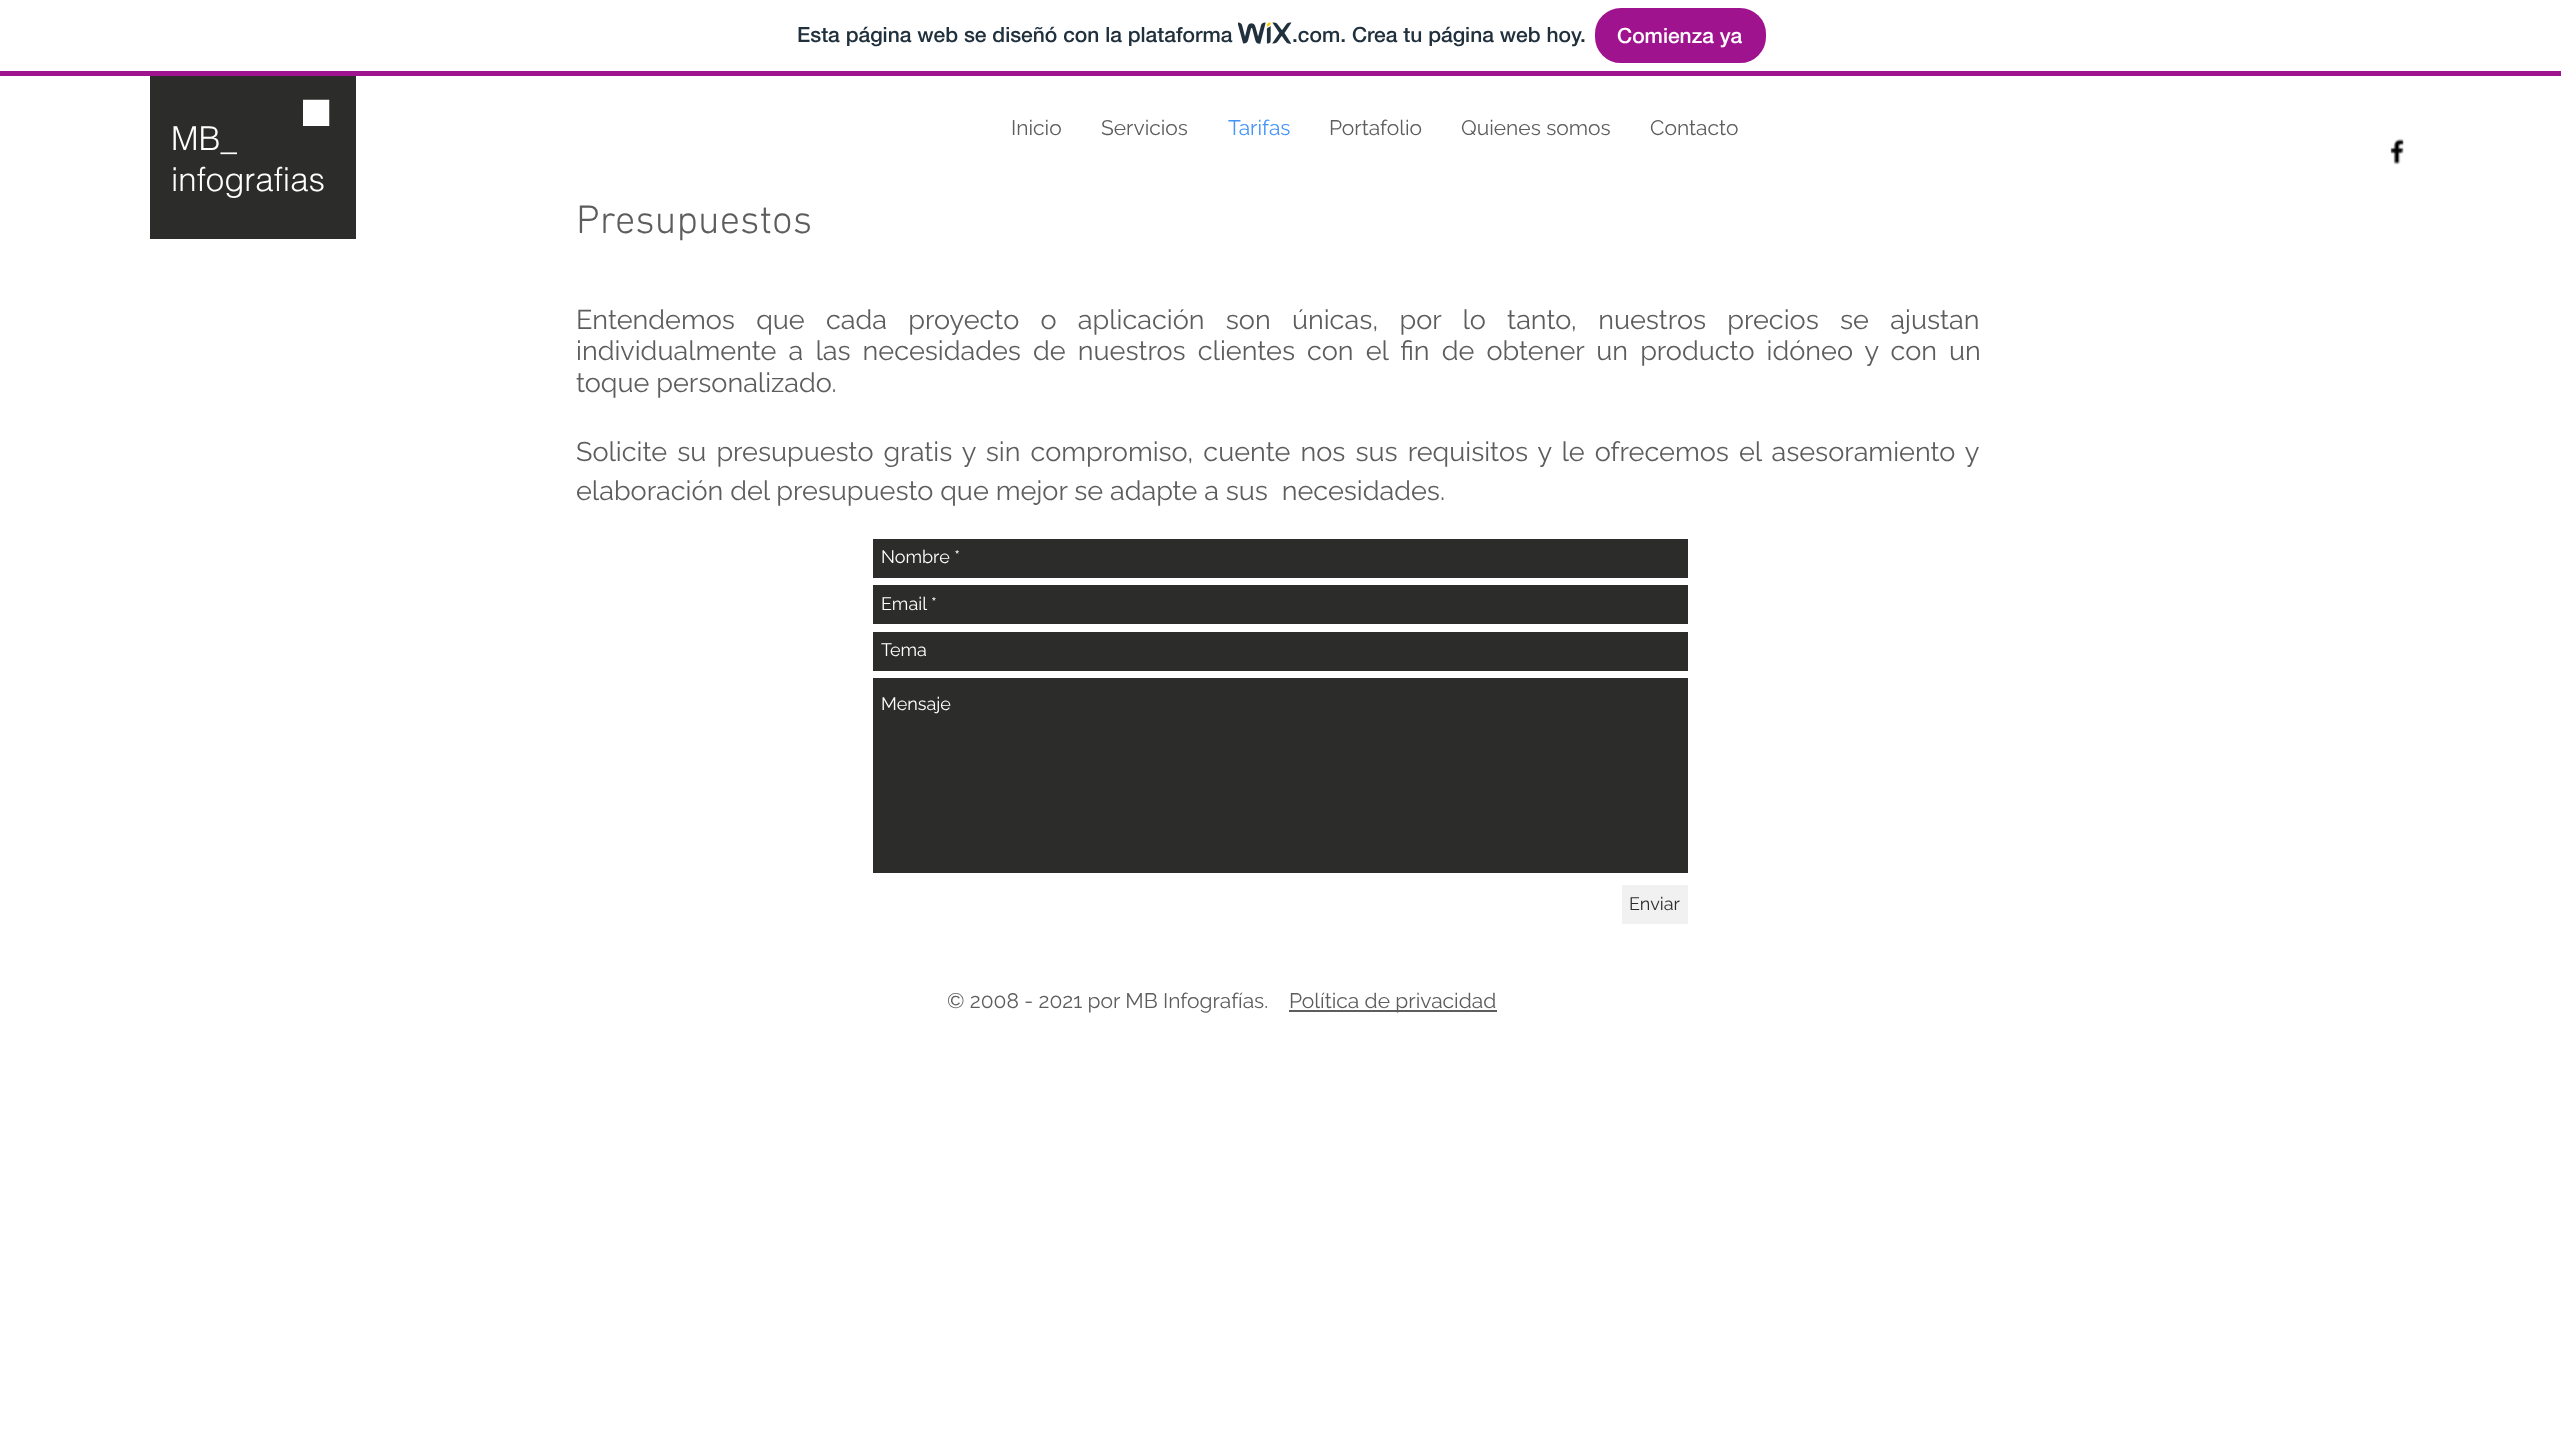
async function draw(canvas) {
	canvas.width = 2561;
	canvas.height = 1436;
	const c = canvas.getContext('2d');
	c.miterLimit = 4;
	c.fontKerning = 'normal';
	async function loadImage(src) {
		const img = new Image();
		img.src = src;
		await img.decode();
		return img;
	}

	c.fillStyle = '#fff';
	c.fillRect(0, 0, 2561, 1436);
	c.fillStyle = '#a0138e';
	c.fillRect(0, 71, 2561, 5);
	c.font = '500 21px "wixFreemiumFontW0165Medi"';
	c.fillStyle = '#20303c';
	c.fillText('Esta página web se diseñó con la plataforma', 797, 42);
	c.drawImage(await loadImage('img1.png'), 1238, 22, 54, 22);
	c.fillText('.com. Crea tu página web hoy.', 1292, 42);
	c.fillStyle = '#a0138e';
	c.beginPath();
	c.roundRect(1596, 9, 169, 53, 25);
	c.fill();
	c.strokeStyle = '#a0138e';
	c.lineWidth = 2;
	c.stroke();
	c.fillStyle = '#fff';
	c.fillText('Comienza ya', 1617, 43);
	c.fillStyle = '#2c2c2b';
	c.fillRect(150, 76, 206, 163);
	c.fillStyle = '#fff';
	c.fillRect(303, 101, 25, 25);
	c.beginPath();
	c.moveTo(303, 100.5);
	c.lineTo(328.5, 100.5);
	c.lineTo(328.5, 126);
	c.lineTo(328.5, 100.5);
	c.closePath();
	c.strokeStyle = '#fff';
	c.lineWidth = 1.5;
	c.stroke();
	c.font = '300 33px helvetica';
	c.fillText('MB_', 171, 150);
	c.fillText('infografias', 171, 191);
	c.font = '21px Raleway';
	c.fillStyle = '#5e5d5d';
	c.fillText('Inicio', 1011, 135);
	c.fillText('Servicios', 1101, 135);
	c.fillStyle = '#4595f7';
	c.fillText('Tarifas', 1228, 135);
	c.fillStyle = '#5e5d5d';
	for (const [text, x, y] of [
		['Portafolio', 1329, 135],
		['Quienes somos', 1461, 135],
		['Contacto', 1650, 135],
	]) {
		c.fillText(text, x, y);
	}
	c.drawImage(await loadImage('img2.png'), 2390, 138, 14, 27);
	c.font = '300 40.5px "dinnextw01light"';
	c.fillText('Presupuestos', 576, 233);
	c.wordSpacing = '14.4px';
	c.font = '27px Raleway';
	c.fillText('Entendemos que cada proyecto o aplicación son únicas, por lo tanto, nuestros precios se ajustan', 576, 329);
	c.wordSpacing = '5.25px';
	c.fillText('individualmente a las necesidades de nuestros clientes con el fin de obtener un producto idóneo y con un', 576, 360);
	c.wordSpacing = '0px';
	c.fillText('toque personalizado.', 576, 392);
	c.wordSpacing = '3.25px';
	c.fillText('Solicite su presupuesto gratis y sin compromiso, cuente nos sus requisitos y le ofrecemos el asesoramiento y', 576, 461);
	c.wordSpacing = '0px';
	c.fillText('elaboración del presupuesto que mejor se adapte a sus  necesidades.', 576, 500);
	c.fillStyle = '#2c2c2b';
	c.fillRect(873, 539, 815, 39);
	c.font = '18px Raleway';
	c.fillStyle = '#fff';
	c.fillText('Nombre *', 881, 563);
	c.fillStyle = '#2c2c2b';
	c.fillRect(873, 585, 815, 39);
	c.fillStyle = '#fff';
	c.fillText('Email *', 881, 610);
	c.fillStyle = '#2c2c2b';
	c.fillRect(873, 632, 815, 39);
	c.fillStyle = '#fff';
	c.fillText('Tema', 881, 656);
	c.fillStyle = '#2c2c2b';
	c.fillRect(873, 678, 815, 195);
	c.fillStyle = '#fff';
	c.fillText('Mensaje', 881, 710);
	c.fillStyle = '#f1f1f1';
	c.fillRect(1622, 885, 66, 39);
	c.fillStyle = '#2c2c2b';
	c.fillText('Enviar', 1629, 910);
	c.font = '21px Raleway';
	c.fillStyle = '#5e5d5d';
	c.fillText('© 2008 - 2021 por MB Infografías.', 947, 1008);
	c.fillRect(1289, 1010, 208, 2);
	c.fillText('Política de privacidad', 1289, 1008);
}

draw(document.querySelector('canvas'));
